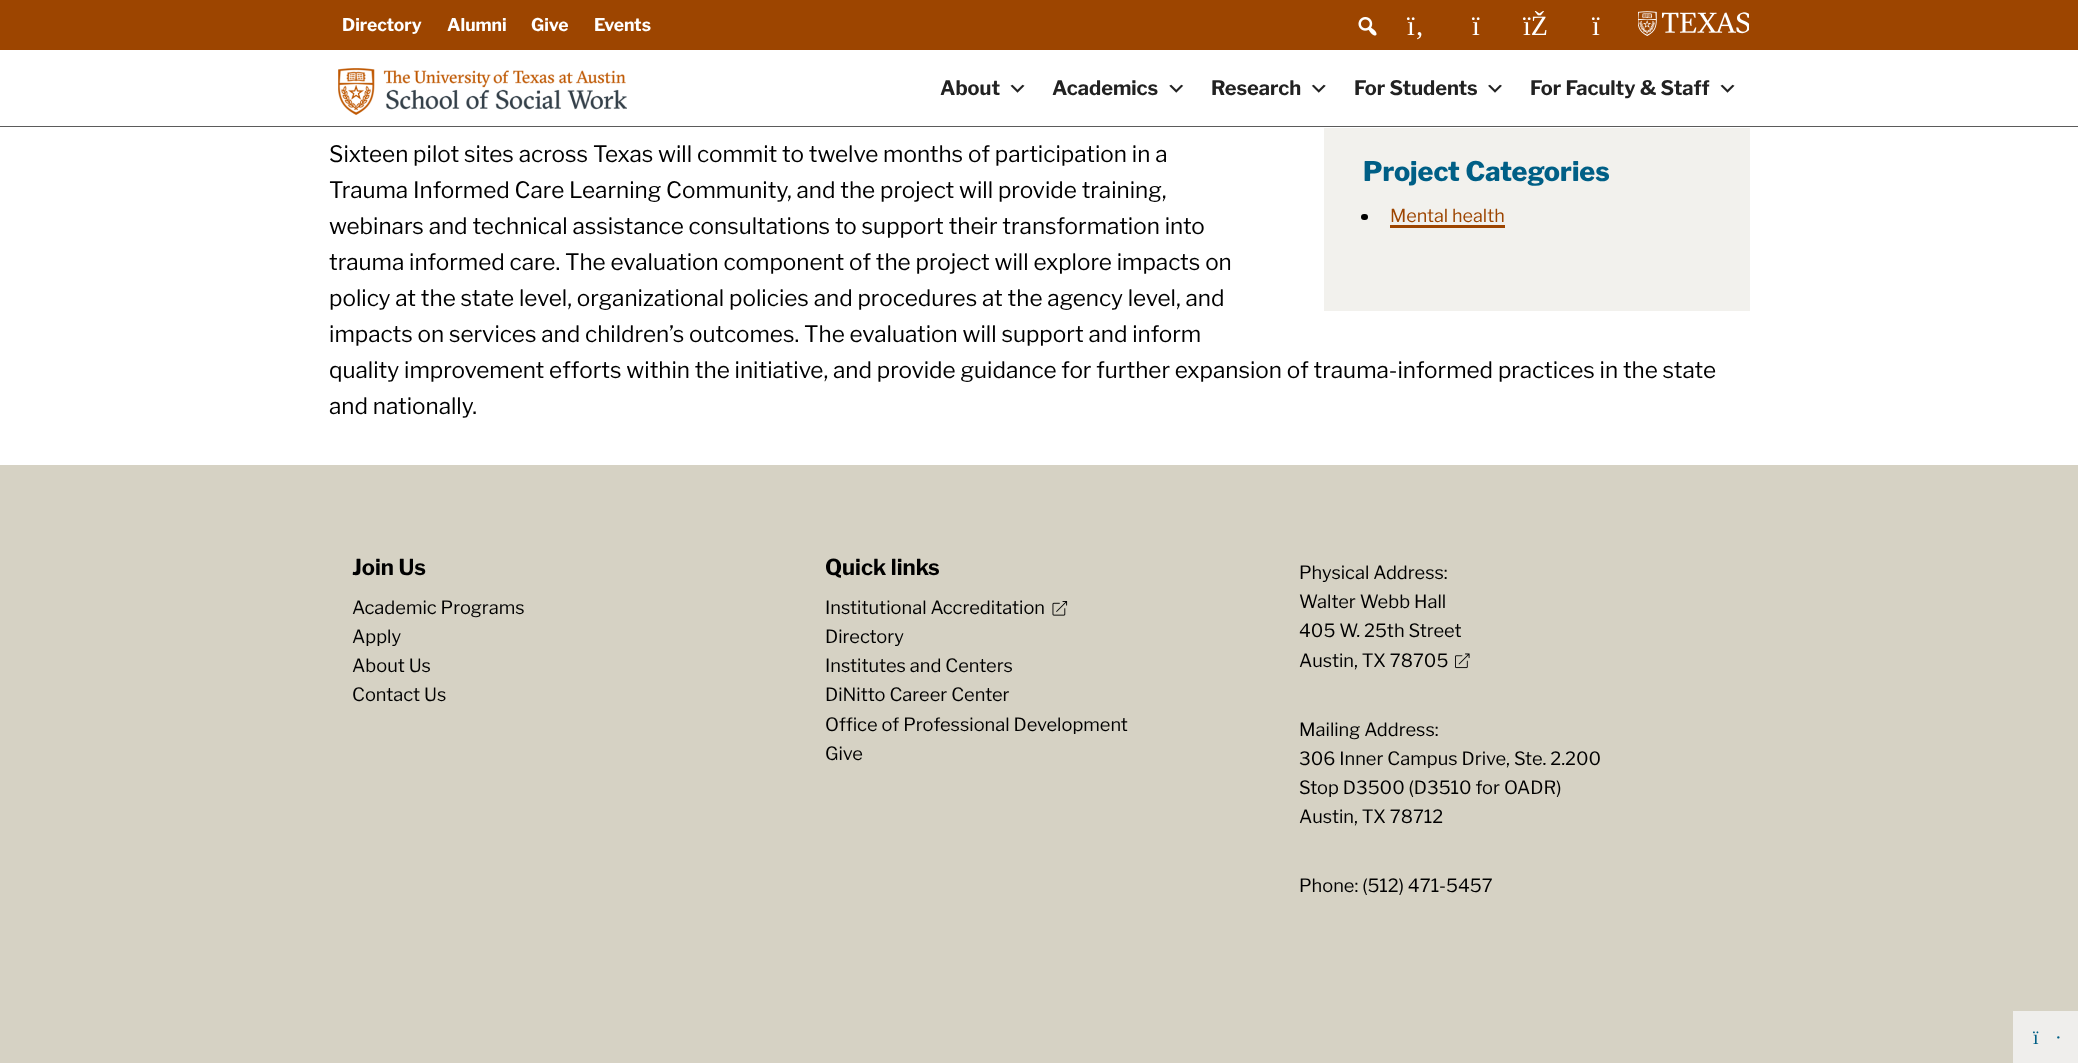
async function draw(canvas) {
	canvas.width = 2078;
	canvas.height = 1063;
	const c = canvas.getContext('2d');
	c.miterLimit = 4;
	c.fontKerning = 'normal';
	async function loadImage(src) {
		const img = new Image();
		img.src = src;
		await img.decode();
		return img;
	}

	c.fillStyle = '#fff';
	c.fillRect(0, 0, 2078, 1063);
	c.fillStyle = '#5b5b5b';
	c.fillRect(0, 126, 2078, 1);
	c.fillStyle = '#9d4500';
	c.fillRect(0, 0, 2078, 50);
	c.font = 'bold 17.5px Libre Franklin';
	c.fillStyle = '#fff';
	for (const [text, x, y] of [
		['Directory', 342, 31],
		['Alumni', 447, 31],
		['Give', 531, 31],
		['Events', 594, 31],
	]) {
		c.fillText(text, x, y);
	}
	c.drawImage(await loadImage('img1.png'), 1358, 17, 19, 19);
	c.font = '28px Liberation Serif';
	for (const [text, x, y] of [
		['ï‚', 1407, 35],
		['ï', 1472, 35],
		['ïŽ', 1523, 35],
		['ï', 1592, 35],
	]) {
		c.fillText(text, x, y);
	}
	c.drawImage(await loadImage('img2.png'), 1638, 11, 111, 25);
	c.drawImage(await loadImage('img3.png'), 338, 68, 289, 47);
	c.font = 'bold 20px Libre Franklin';
	c.fillStyle = '#222';
	c.fillText('About', 940, 95);
	c.drawImage(await loadImage('img4.png'), 1010, 84, 15, 9);
	c.fillText('Academics', 1052, 95);
	c.drawImage(await loadImage('img5.png'), 1169, 84, 15, 9);
	c.fillText('Research', 1211, 95);
	c.drawImage(await loadImage('img6.png'), 1311, 84, 15, 9);
	c.fillText('For Students', 1354, 95);
	c.drawImage(await loadImage('img7.png'), 1488, 84, 14, 9);
	c.fillText('For Faculty & Staff', 1530, 95);
	c.drawImage(await loadImage('img4.png'), 1720, 84, 15, 9);
	c.font = '22.5px Libre Franklin';
	c.fillStyle = '#000';
	for (const [text, x, y] of [
		['Sixteen pilot sites across Texas will commit to twelve months of participation in a', 329, 162],
		['Trauma Informed Care Learning Community, and the project will provide training,', 329, 198],
		['webinars and technical assistance consultations to support their transformation into', 329, 234],
		['trauma informed care. The evaluation component of the project will explore impacts on', 329, 270],
		['policy at the state level, organizational policies and procedures at the agency level, and', 329, 306],
		['impacts on services and children’s outcomes. The evaluation will support and inform', 329, 342],
		['quality improvement efforts within the initiative, and provide guidance for further expansion of trauma-informed practices in the state', 329, 378],
		['and nationally.', 329, 414],
	]) {
		c.fillText(text, x, y);
	}
	c.fillStyle = '#f2f1ed';
	c.fillRect(1324, 128, 426, 183);
	c.font = '800 27px Libre Franklin';
	c.fillStyle = '#005f86';
	c.fillText('Project Categories', 1363, 181);
	c.fillStyle = '#000';
	c.beginPath();
	c.roundRect(1361, 214, 7, 6, 3);
	c.fill();
	c.font = '18px Libre Franklin';
	c.fillStyle = '#9d4500';
	c.fillText('Mental health', 1390, 222);
	c.fillRect(1390, 225, 115, 3);
	c.fillStyle = '#d6d2c4';
	c.fillRect(0, 465, 2078, 598);
	c.font = 'bold 22px Libre Franklin';
	c.fillStyle = '#000';
	c.fillText('Join Us', 352, 575);
	c.font = '18.25px Libre Franklin';
	for (const [text, x, y] of [
		['Academic Programs', 352, 614],
		['Apply', 352, 643],
		['About Us', 352, 672],
		['Contact Us', 352, 701],
	]) {
		c.fillText(text, x, y);
	}
	c.font = 'bold 22px Libre Franklin';
	c.fillText('Quick links', 825, 575);
	c.font = '18.25px Libre Franklin';
	c.fillText('Institutional Accreditation', 825, 614);
	c.drawImage(await loadImage('img8.png'), 1052, 601, 16, 15);
	for (const [text, x, y] of [
		['Directory', 825, 643],
		['Institutes and Centers', 825, 672],
		['DiNitto Career Center', 825, 701],
		['Office of Professional Development', 825, 731],
		['Give', 825, 760],
		['Physical Address:', 1299, 579],
		['Walter Webb Hall', 1299, 608],
		['405 W. 25th Street', 1299, 637],
		['Austin, TX 78705', 1299, 667],
	]) {
		c.fillText(text, x, y);
	}
	c.drawImage(await loadImage('img9.png'), 1455, 653, 15, 16);
	for (const [text, x, y] of [
		['Mailing Address:', 1299, 736],
		['306 Inner Campus Drive, Ste. 2.200', 1299, 765],
		['Stop D3500 (D3510 for OADR)', 1299, 794],
		['Austin, TX 78712', 1299, 823],
		['Phone: (512) 471-5457', 1299, 892],
	]) {
		c.fillText(text, x, y);
	}
	c.fillStyle = '#efeeec';
	c.fillRect(2013, 1011, 65, 52);
	c.font = '20px Liberation Serif';
	c.fillStyle = '#005f86';
	c.fillText('ï', 2033, 1044);
	c.fillText('·', 2055, 1044);
}

draw(document.querySelector('canvas'));
